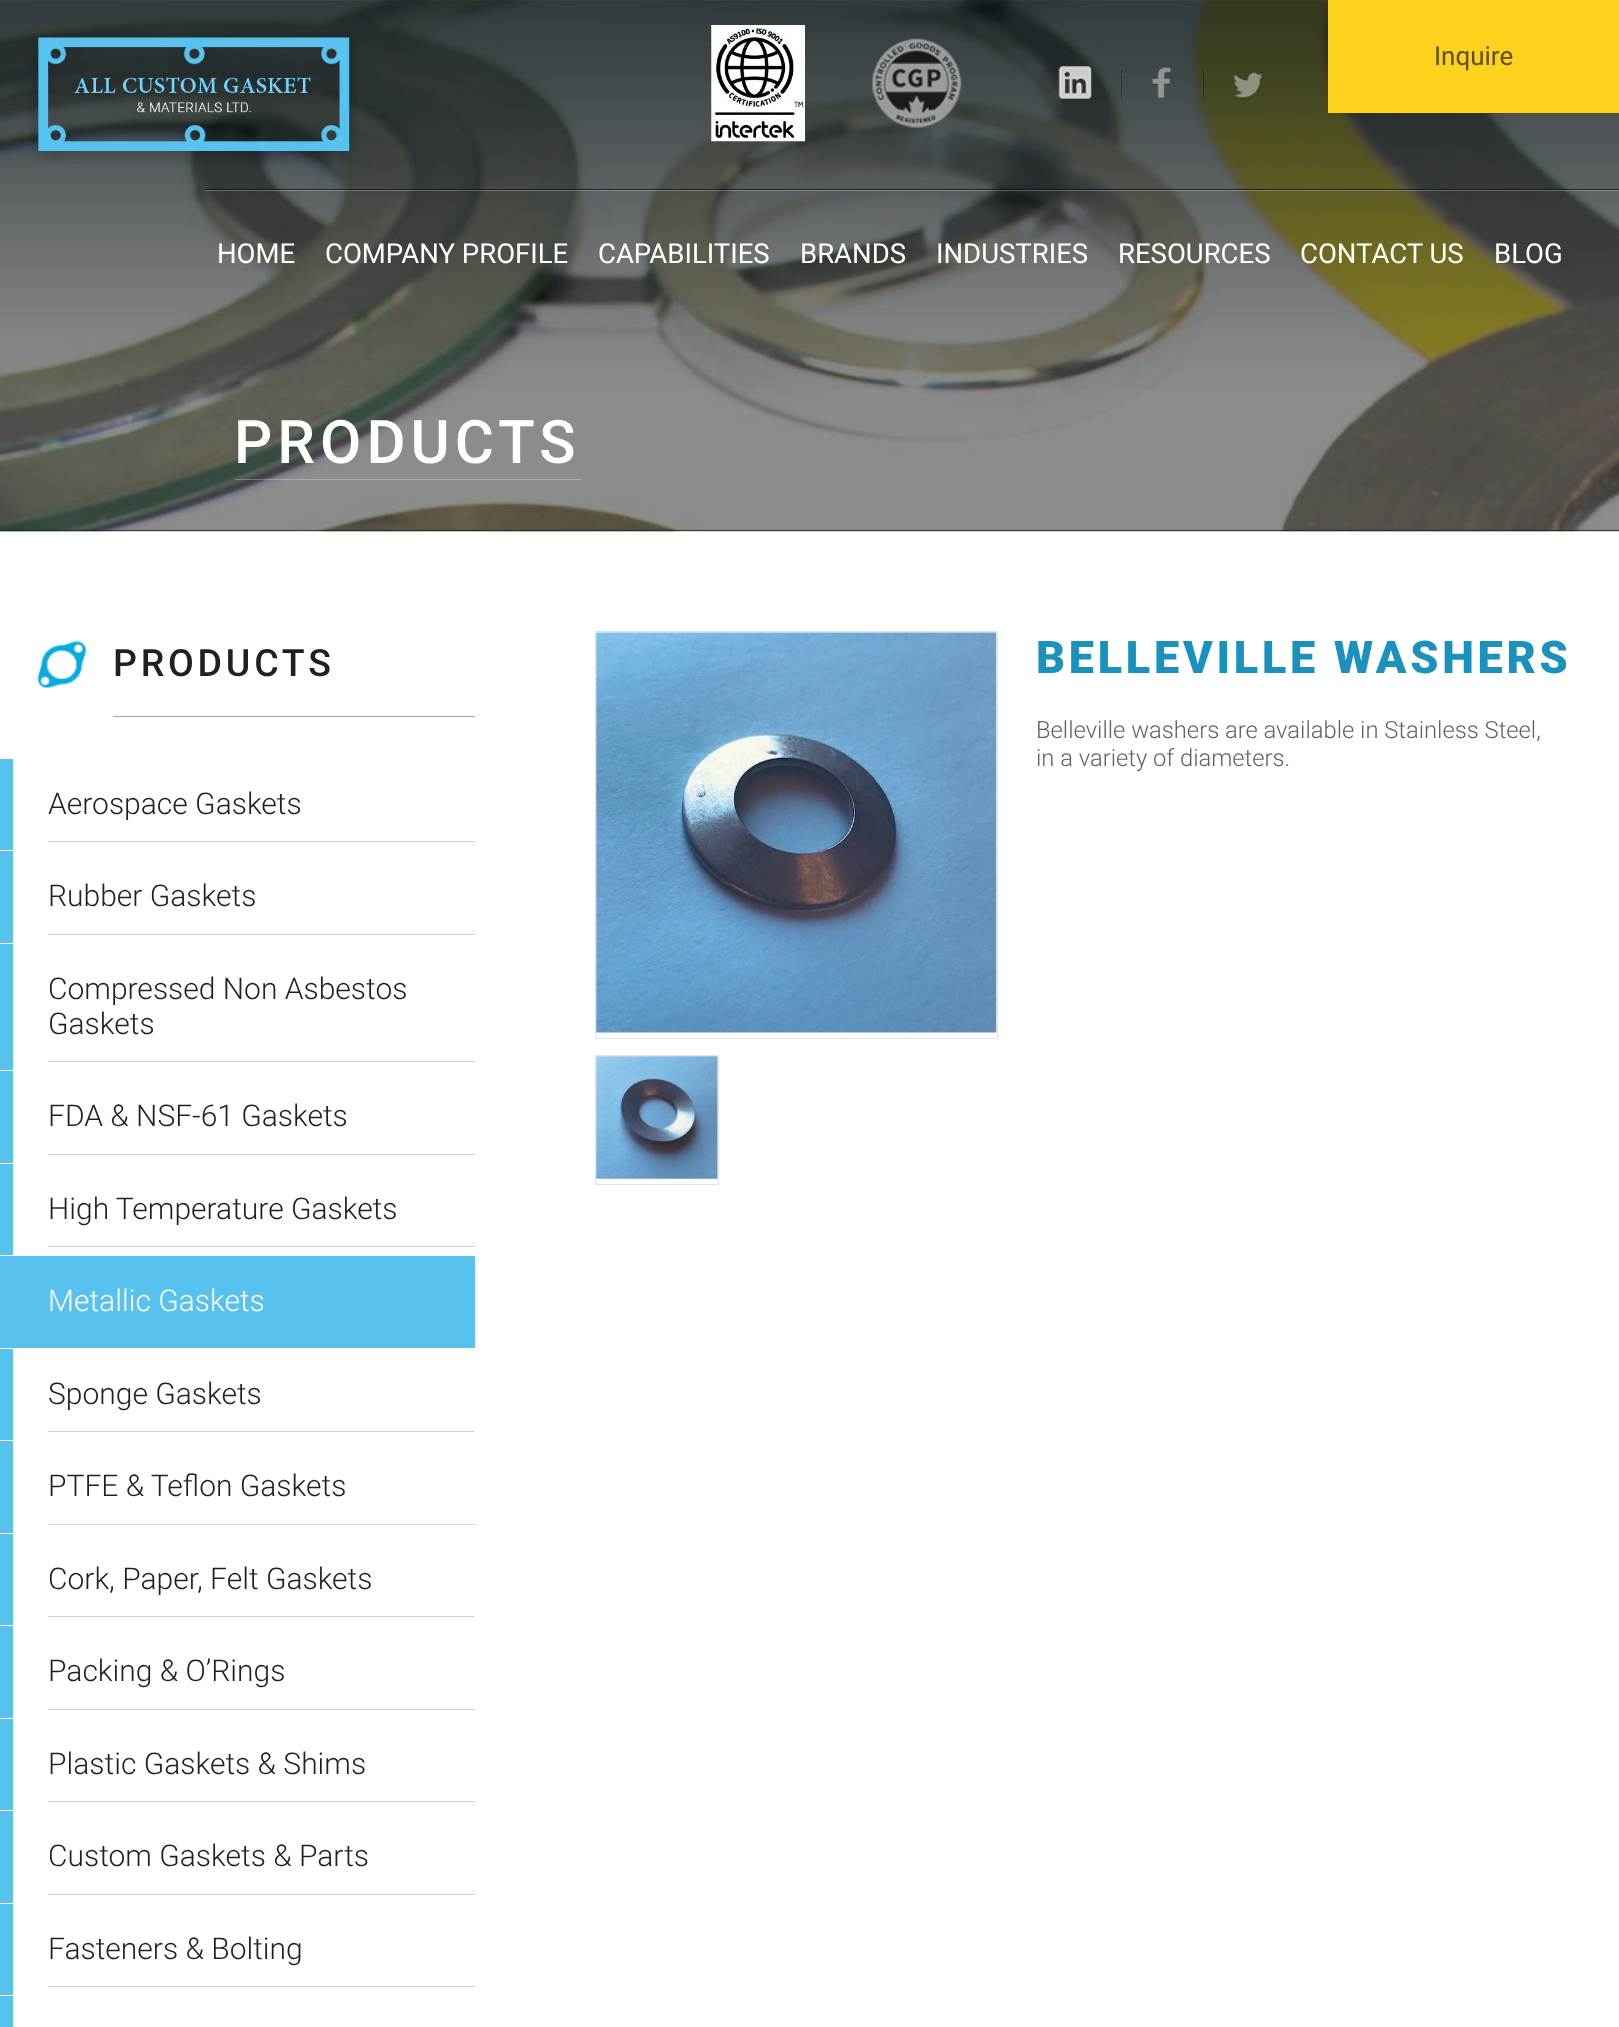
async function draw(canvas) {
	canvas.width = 1619;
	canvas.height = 2027;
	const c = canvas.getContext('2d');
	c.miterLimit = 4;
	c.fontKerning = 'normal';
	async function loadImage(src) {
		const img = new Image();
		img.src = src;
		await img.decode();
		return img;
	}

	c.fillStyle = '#fff';
	c.fillRect(0, 0, 1619, 2027);
	c.drawImage(await loadImage('img7.png'), 0, 0, 1619, 532);
	c.drawImage(await loadImage('img8.png'), 0, 0, 1619, 532);
	c.drawImage(await loadImage('img1.png'), 30, 33, 327, 131);
	c.fillStyle = '#000d13a8';
	c.fillRect(205, 189, 1414, 1);
	c.drawImage(await loadImage('img2.png'), 711, 25, 94, 117);
	c.drawImage(await loadImage('img3.png'), 872, 38, 90, 90);
	c.drawImage(await loadImage('img4.png'), 1058, 66, 34, 33);
	c.fillStyle = '#00000047';
	c.fillRect(1121, 69, 1, 30);
	c.drawImage(await loadImage('img5.png'), 1152, 66, 20, 33);
	c.fillRect(1203, 69, 1, 30);
	c.drawImage(await loadImage('img6.png'), 1233, 72, 31, 27);
	c.fillStyle = '#ffd21d';
	c.fillRect(1328, 0, 291, 113);
	c.font = '26px Roboto';
	c.fillStyle = '#5d4d11';
	c.fillText('Inquire', 1434, 65);
	c.fillStyle = '#ffffff42';
	c.fillRect(205, 190, 1414, 1);
	c.font = '27.5px Roboto';
	c.fillStyle = '#fff';
	for (const [text, x, y] of [
		['HOME', 217, 263],
		['COMPANY PROFILE', 325, 263],
		['CAPABILITIES', 598, 263],
		['BRANDS', 800, 263],
		['INDUSTRIES', 936, 263],
		['RESOURCES', 1118, 263],
		['CONTACT US', 1300, 263],
		['BLOG', 1494, 263],
	]) {
		c.fillText(text, x, y);
	}
	c.fillStyle = '#ffffff42';
	c.fillRect(235, 479, 346, 1);
	c.letterSpacing = '5px';
	c.font = '500 60px Roboto';
	c.fillStyle = '#fff';
	c.fillText('PRODUCTS', 234, 463);
	c.drawImage(await loadImage('img9.png'), 37, 641, 50, 47);
	c.fillStyle = '#a7a5a6';
	c.fillRect(113, 716, 362, 1);
	c.letterSpacing = '3.75px';
	c.font = '500 37.5px Roboto';
	c.fillStyle = '#231f20';
	c.fillText('PRODUCTS', 113, 676);
	c.fillStyle = '#58c2ef';
	c.fillRect(0, 759, 13, 91);
	c.fillStyle = '#d3d2d2';
	c.fillRect(48, 841, 427, 1);
	c.letterSpacing = '0px';
	c.font = '300 30px Roboto';
	c.fillStyle = '#231f20';
	c.fillText('Aerospace Gaskets', 48, 814);
	c.fillStyle = '#58c2ef';
	c.fillRect(0, 851, 13, 92);
	c.fillStyle = '#d3d2d2';
	c.fillRect(48, 934, 427, 1);
	c.fillStyle = '#231f20';
	c.fillText('Rubber Gaskets', 48, 906);
	c.fillStyle = '#58c2ef';
	c.fillRect(0, 944, 13, 126);
	c.fillStyle = '#d3d2d2';
	c.fillRect(48, 1061, 427, 1);
	c.fillStyle = '#231f20';
	c.fillText('Compressed Non Asbestos', 48, 999);
	c.fillText('Gaskets', 48, 1034);
	c.fillStyle = '#58c2ef';
	c.fillRect(0, 1071, 13, 92);
	c.fillStyle = '#d3d2d2';
	c.fillRect(48, 1154, 427, 1);
	c.fillStyle = '#231f20';
	c.fillText('FDA & NSF-61 Gaskets', 48, 1126);
	c.fillStyle = '#58c2ef';
	c.fillRect(0, 1164, 13, 91);
	c.fillStyle = '#d3d2d2';
	c.fillRect(48, 1246, 427, 1);
	c.fillStyle = '#231f20';
	c.fillText('High Temperature Gaskets', 48, 1219);
	c.fillStyle = '#58c2ef';
	c.fillRect(0, 1256, 475, 92);
	c.fillStyle = '#fff';
	c.fillText('Metallic Gaskets', 48, 1311);
	c.fillStyle = '#58c2ef';
	c.fillRect(0, 1349, 13, 91);
	c.fillStyle = '#d3d2d2';
	c.fillRect(48, 1431, 427, 1);
	c.fillStyle = '#231f20';
	c.fillText('Sponge Gaskets', 48, 1404);
	c.fillStyle = '#58c2ef';
	c.fillRect(0, 1441, 13, 92);
	c.fillStyle = '#d3d2d2';
	c.fillRect(48, 1524, 427, 1);
	c.fillStyle = '#231f20';
	c.fillText('PTFE & Teflon Gaskets', 48, 1496);
	c.fillStyle = '#58c2ef';
	c.fillRect(0, 1534, 13, 91);
	c.fillStyle = '#d3d2d2';
	c.fillRect(48, 1616, 427, 1);
	c.fillStyle = '#231f20';
	c.fillText('Cork, Paper, Felt Gaskets', 48, 1589);
	c.fillStyle = '#58c2ef';
	c.fillRect(0, 1626, 13, 92);
	c.fillStyle = '#d3d2d2';
	c.fillRect(48, 1709, 427, 1);
	c.fillStyle = '#231f20';
	c.fillText('Packing & O’Rings', 48, 1681);
	c.fillStyle = '#58c2ef';
	c.fillRect(0, 1719, 13, 91);
	c.fillStyle = '#d3d2d2';
	c.fillRect(48, 1801, 427, 1);
	c.fillStyle = '#231f20';
	c.fillText('Plastic Gaskets & Shims', 48, 1774);
	c.fillStyle = '#58c2ef';
	c.fillRect(0, 1811, 13, 92);
	c.fillStyle = '#d3d2d2';
	c.fillRect(48, 1894, 427, 1);
	c.fillStyle = '#231f20';
	c.fillText('Custom Gaskets & Parts', 48, 1866);
	c.fillStyle = '#58c2ef';
	c.fillRect(0, 1904, 13, 91);
	c.fillStyle = '#d3d2d2';
	c.fillRect(48, 1986, 427, 1);
	c.fillStyle = '#231f20';
	c.fillText('Fasteners & Bolting', 48, 1959);
	c.fillStyle = '#58c2ef';
	c.fillRect(0, 1996, 13, 31);
	c.strokeStyle = '#e3e3e3';
	c.strokeRect(595.5, 631.5, 402, 407);
	c.drawImage(await loadImage('img10.png'), 596, 632, 401, 401);
	c.strokeRect(595.5, 1055.5, 123, 129);
	c.drawImage(await loadImage('img11.png'), 596, 1056, 122, 123);
	c.letterSpacing = '3.75px';
	c.font = '900 45px Roboto';
	c.fillStyle = '#1b91bd';
	c.fillText('BELLEVILLE WASHERS', 1036, 673);
	c.letterSpacing = '0px';
	c.font = '300 23.75px Roboto';
	c.fillStyle = '#636262';
	c.fillText('Belleville washers are available in Stainless Steel,', 1036, 738);
	c.fillText('in a variety of diameters.', 1036, 766);
}

draw(document.querySelector('canvas'));
